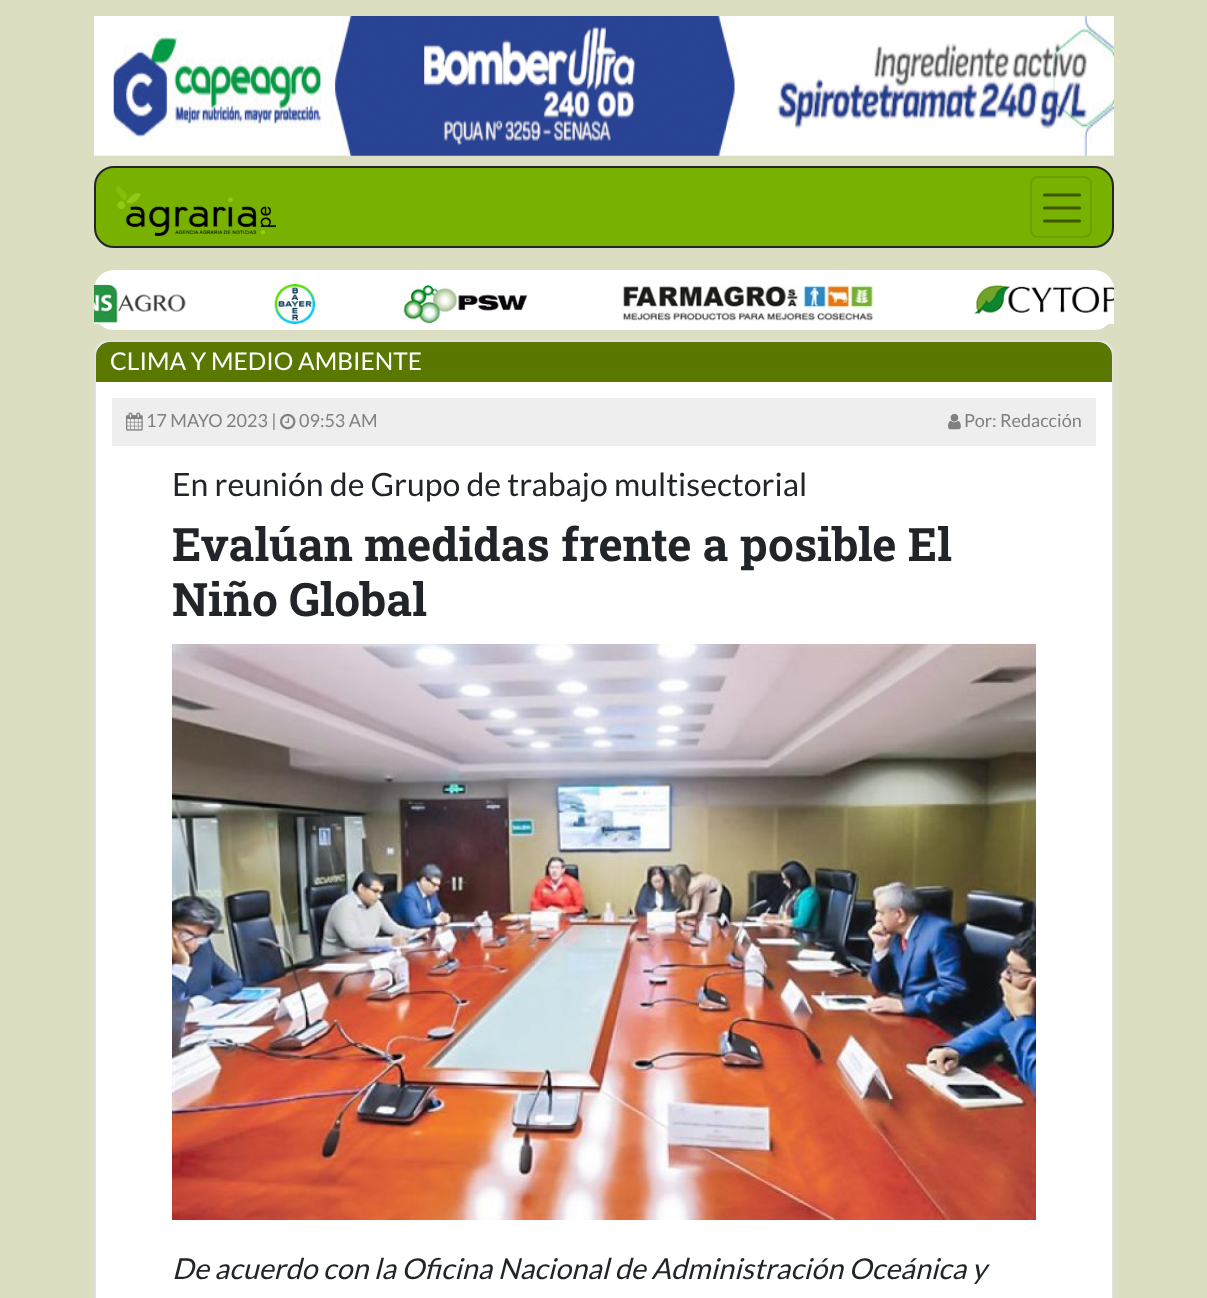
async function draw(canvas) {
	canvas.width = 1207;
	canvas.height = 1298;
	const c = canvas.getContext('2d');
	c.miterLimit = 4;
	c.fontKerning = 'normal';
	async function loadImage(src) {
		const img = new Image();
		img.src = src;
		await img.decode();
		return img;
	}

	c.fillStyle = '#dbdec0';
	c.fillRect(0, 0, 1207, 1298);
	c.drawImage(await loadImage('img1.png'), 94, 16, 1020, 140);
	c.fillStyle = '#78b100';
	c.beginPath();
	c.roundRect(95, 167, 1018, 80, 19);
	c.fill();
	c.strokeStyle = '#212529';
	c.lineWidth = 2;
	c.stroke();
	c.drawImage(await loadImage('img2.png'), 116, 186, 160, 50);
	c.beginPath();
	c.roundRect(1031, 177, 60, 60, 7);
	c.strokeStyle = '#6c9f00';
	c.stroke();
	c.beginPath();
	c.moveTo(1044.5, 195);
	c.lineTo(1079.5, 195);
	c.moveTo(1044.5, 208);
	c.lineTo(1079.5, 208);
	c.moveTo(1044.5, 221);
	c.lineTo(1079.5, 221);
	c.strokeStyle = '#3c5900';
	c.lineWidth = 3.2;
	c.lineCap = 'round';
	c.stroke();
	c.fillStyle = '#fff';
	c.beginPath();
	c.roundRect(94, 270, 1020, 60, 20);
	c.fill();
	c.drawImage(await loadImage('img3.png'), 94, 284, 92, 40);
	c.drawImage(await loadImage('img4.png'), 274, 284, 42, 40);
	c.drawImage(await loadImage('img5.png'), 403, 284, 125, 40);
	c.drawImage(await loadImage('img6.png'), 622, 284, 252, 37);
	c.drawImage(await loadImage('img7.png'), 973, 284, 141, 40);
	c.beginPath();
	c.roundRect(94, 340, 1020, 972, 14);
	c.fill();
	c.beginPath();
	c.roundRect(95, 341, 1018, 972, 13);
	c.strokeStyle = '#0000001f';
	c.lineWidth = 2;
	c.stroke();
	c.fillStyle = '#5a7700';
	c.beginPath();
	c.roundRect(96, 342, 1016, 40, [14, 14, 0, 0]);
	c.fill();
	c.font = '24.5px Lato';
	c.fillStyle = '#fff';
	c.fillText('CLIMA Y MEDIO AMBIENTE', 110, 370);
	c.fillStyle = '#eee';
	c.fillRect(112, 398, 984, 48);
	c.drawImage(await loadImage('img8.png'), 126, 412, 17, 19);
	c.font = '18px Lato';
	c.fillStyle = '#808080';
	c.fillText('17 MAYO 2023 |', 146, 427);
	c.drawImage(await loadImage('img9.png'), 280, 413, 16, 17);
	c.fillText('09:53 AM', 299, 427);
	c.drawImage(await loadImage('img10.png'), 948, 413, 13, 17);
	c.fillText('Por: Redacción', 964, 427);
	c.font = '32px Lato';
	c.fillStyle = '#212529';
	c.fillText('En reunión de Grupo de trabajo multisectorial', 172, 496);
	c.font = 'bold 46px Roboto Slab';
	c.fillText('Evalúan medidas frente a posible El', 172, 561);
	c.fillText('Niño Global', 172, 616);
	c.drawImage(await loadImage('img11.png'), 172, 644, 864, 576);
	c.font = 'italic 28.8px Lato';
	c.fillText('De acuerdo con la Oficina Nacional de Administración Oceánica y', 172, 1279);
}

draw(document.querySelector('canvas'));
